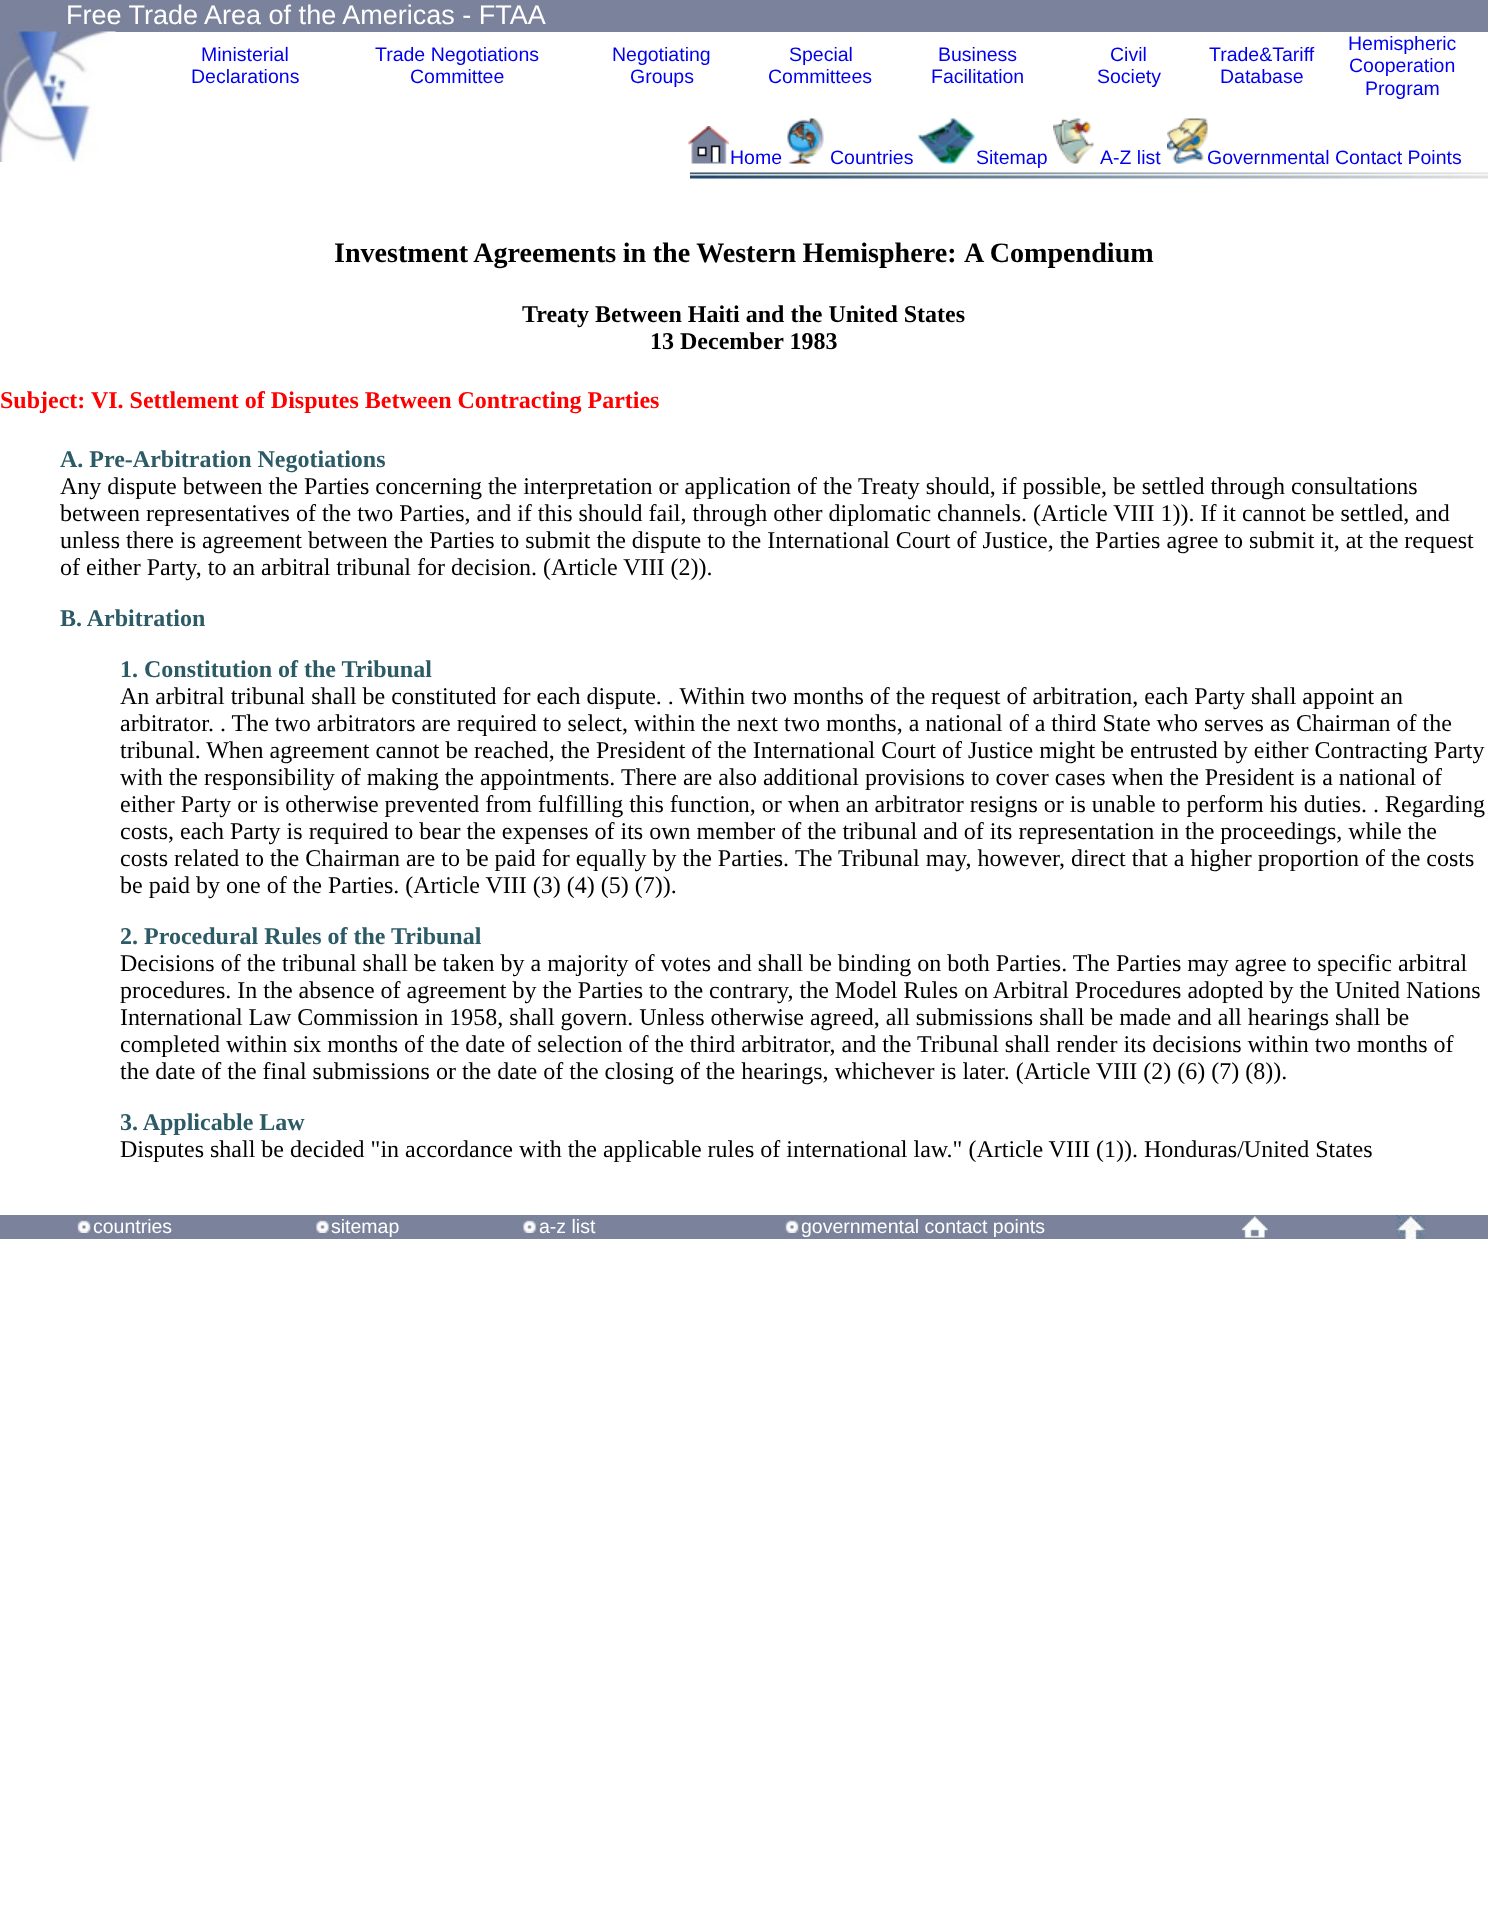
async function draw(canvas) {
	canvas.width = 1488;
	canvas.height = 1911;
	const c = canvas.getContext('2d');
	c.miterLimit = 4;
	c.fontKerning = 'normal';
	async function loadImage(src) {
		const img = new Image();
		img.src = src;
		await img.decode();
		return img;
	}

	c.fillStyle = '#fff';
	c.fillRect(0, 0, 1488, 1911);
	c.fillStyle = '#7b829c';
	c.fillRect(0, 0, 1488, 32);
	c.font = '27px Liberation Sans';
	c.fillStyle = '#fff';
	c.fillText('Free Trade Area of the Americas - FTAA', 66, 24);
	c.drawImage(await loadImage('img1.png'), 0, 31, 116, 131);
	c.font = '19.5px Liberation Sans';
	c.fillStyle = '#00e';
	for (const [text, x, y] of [
		['Ministerial', 201, 61],
		['Declarations', 191, 83],
		['Trade Negotiations', 375, 61],
		['Committee', 410, 83],
		['Negotiating', 612, 61],
		['Groups', 630, 83],
		['Special', 789, 61],
		['Committees', 768, 83],
		['Business', 938, 61],
		['Facilitation', 931, 83],
		['Civil', 1110, 61],
		['Society', 1097, 83],
		['Trade&Tariff', 1209, 61],
		['Database', 1220, 83],
		['Hemispheric', 1348, 50],
		['Cooperation', 1349, 72],
		['Program', 1365, 95],
	]) {
		c.fillText(text, x, y);
	}
	c.drawImage(await loadImage('img2.png'), 688, 126, 41, 38);
	c.fillText('Home', 730, 164);
	c.drawImage(await loadImage('img3.png'), 787, 118, 37, 46);
	c.fillText('Countries', 830, 164);
	c.drawImage(await loadImage('img4.png'), 918, 118, 57, 46);
	c.fillText('Sitemap', 976, 164);
	c.drawImage(await loadImage('img5.png'), 1053, 118, 41, 46);
	c.fillText('A-Z list', 1100, 164);
	c.drawImage(await loadImage('img6.png'), 1167, 118, 41, 46);
	c.fillText('Governmental Contact Points', 1207, 164);
	c.drawImage(await loadImage('img7.png'), 690, 172, 798, 7);
	c.wordSpacing = '-0.5px';
	c.font = 'bold 28.1px Liberation Serif';
	c.fillStyle = '#000';
	c.fillText('Investment Agreements in the Western Hemisphere:', 334, 262);
	c.wordSpacing = '0px';
	c.fillText('A Compendium', 964, 262);
	c.font = 'bold 24px Liberation Serif';
	c.fillText('Treaty Between Haiti and the United States', 522, 322);
	c.fillText('13 December 1983', 650, 349);
	c.fillStyle = '#f00';
	c.fillText('Subject: VI. Settlement of Disputes Between Contracting Parties', 0, 408);
	c.fillStyle = '#2c5b66';
	c.fillText('A. Pre-Arbitration Negotiations', 60, 467);
	c.font = '24px Liberation Serif';
	c.fillStyle = '#000';
	for (const [text, x, y] of [
		['Any dispute between the Parties concerning the interpretation or application of the Treaty should, if possible, be settled through consultations', 60, 494],
		['between representatives of the two Parties, and if this should fail, through other diplomatic channels. (Article VIII 1)). If it cannot be settled, and', 60, 521],
		['unless there is agreement between the Parties to submit the dispute to the International Court of Justice, the Parties agree to submit it, at the request', 60, 548],
		['of either Party, to an arbitral tribunal for decision. (Article VIII (2)).', 60, 575],
	]) {
		c.fillText(text, x, y);
	}
	c.font = 'bold 24px Liberation Serif';
	c.fillStyle = '#2c5b66';
	c.fillText('B. Arbitration', 60, 626);
	c.fillText('1. Constitution of the Tribunal', 120, 677);
	c.font = '24px Liberation Serif';
	c.fillStyle = '#000';
	for (const [text, x, y] of [
		['An arbitral tribunal shall be constituted for each dispute. . Within two months of the request of arbitration, each Party shall appoint an', 120, 704],
		['arbitrator. . The two arbitrators are required to select, within the next two months, a national of a third State who serves as Chairman of the', 120, 731],
		['tribunal. When agreement cannot be reached, the President of the International Court of Justice might be entrusted by either Contracting Party', 120, 758],
		['with the responsibility of making the appointments.', 120, 785],
		['There are also additional provisions to cover cases when the President is a national of', 621, 785],
		['either Party or is otherwise prevented from fulfilling this function, or when an arbitrator resigns or is unable to perform his duties. . Regarding', 120, 812],
		['costs, each Party is required to bear the expenses of its own member of the tribunal and of its representation in the proceedings, while the', 120, 839],
		['costs related to the Chairman are to be paid for equally by the Parties.', 120, 866],
		['The Tribunal may, however, direct that a higher proportion of the costs', 795, 866],
		['be paid by one of the Parties. (Article VIII (3) (4) (5) (7)).', 120, 893],
	]) {
		c.fillText(text, x, y);
	}
	c.font = 'bold 24px Liberation Serif';
	c.fillStyle = '#2c5b66';
	c.fillText('2. Procedural Rules of the Tribunal', 120, 944);
	c.font = '24px Liberation Serif';
	c.fillStyle = '#000';
	for (const [text, x, y] of [
		['Decisions of the tribunal shall be taken by a majority of votes and shall be binding on both Parties. The Parties may agree to specific arbitral', 120, 971],
		['procedures. In the absence of agreement by the Parties to the contrary, the Model Rules on Arbitral Procedures adopted by the United Nations', 120, 998],
		['International Law Commission in 1958, shall govern. Unless otherwise agreed, all submissions shall be made and all hearings shall be', 120, 1025],
		['completed within six months of the date of selection of the third arbitrator, and the Tribunal shall render its decisions within two months of', 120, 1052],
		['the date of the final submissions or the date of the closing of the hearings, whichever is later. (Article VIII (2) (6) (7) (8)).', 120, 1079],
	]) {
		c.fillText(text, x, y);
	}
	c.font = 'bold 24px Liberation Serif';
	c.fillStyle = '#2c5b66';
	c.fillText('3. Applicable Law', 120, 1130);
	c.font = '24px Liberation Serif';
	c.fillStyle = '#000';
	c.fillText('Disputes shall be decided "in accordance with the applicable rules of international law." (Article VIII (1)). Honduras/United States', 120, 1157);
	c.fillStyle = '#7b829c';
	c.fillRect(0, 1215, 1488, 24);
	c.drawImage(await loadImage('img8.png'), 75, 1215, 18, 18);
	c.font = '19.5px Liberation Sans';
	c.fillStyle = '#fff';
	c.fillText('countries', 93, 1233);
	c.drawImage(await loadImage('img9.png'), 313, 1215, 19, 18);
	c.fillText('sitemap', 331, 1233);
	c.drawImage(await loadImage('img10.png'), 520, 1215, 19, 18);
	c.fillText('a-z list', 539, 1233);
	c.drawImage(await loadImage('img8.png'), 783, 1215, 18, 18);
	c.fillText('governmental contact points', 801, 1233);
	c.drawImage(await loadImage('img11.png'), 1241, 1215, 27, 24);
	c.drawImage(await loadImage('img12.png'), 1396, 1215, 29, 24);
}

draw(document.querySelector('canvas'));
